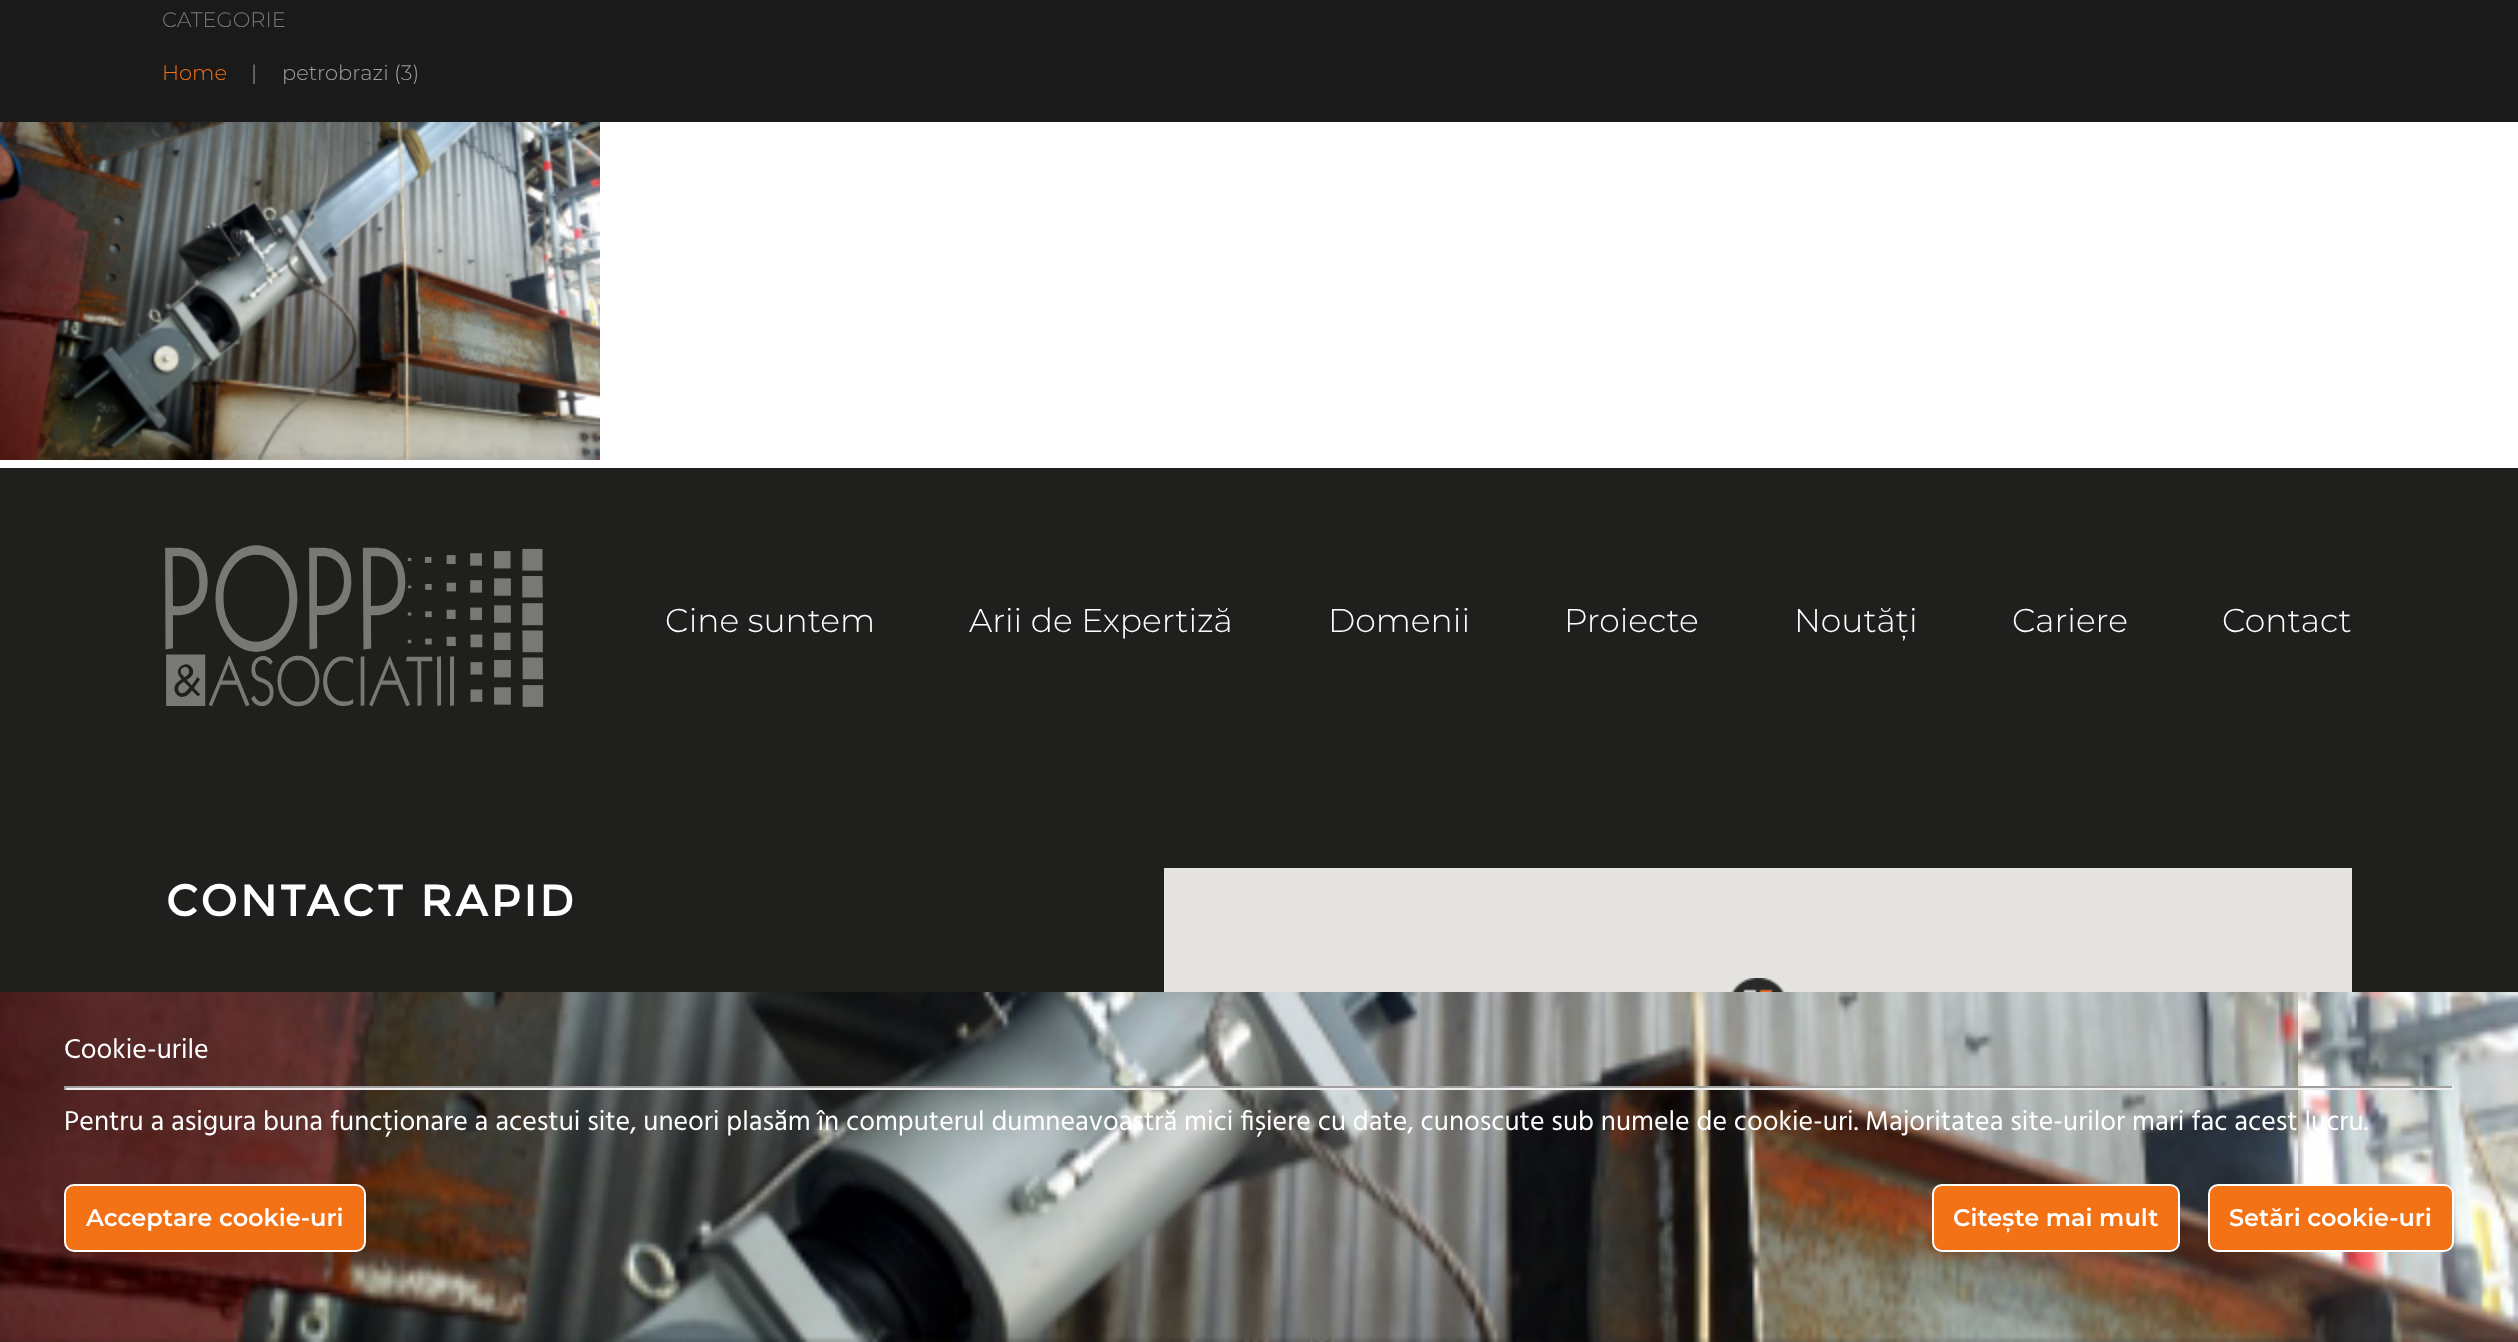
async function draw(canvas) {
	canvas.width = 2518;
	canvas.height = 1342;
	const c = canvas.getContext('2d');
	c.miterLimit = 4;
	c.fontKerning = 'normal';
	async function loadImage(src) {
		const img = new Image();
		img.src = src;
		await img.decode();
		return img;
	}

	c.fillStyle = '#fff';
	c.fillRect(0, 0, 2518, 1342);
	c.fillStyle = '#1a1a1a';
	c.fillRect(0, 0, 2518, 122);
	c.font = '300 21px Montserrat';
	c.fillStyle = '#797979';
	c.fillText('CATEGORIE', 162, 27);
	c.fillStyle = '#f47216';
	c.fillText('Home', 162, 80);
	c.fillStyle = '#a1a1a1';
	c.fillText('|', 251, 80);
	c.fillText('petrobrazi (3)', 282, 80);
	c.drawImage(await loadImage('img1.png'), 0, 122, 600, 338);
	c.fillStyle = '#1f1f1d';
	c.fillRect(0, 468, 2518, 874);
	c.drawImage(await loadImage('img2.png'), 528, 1336, 1476, 6);
	c.drawImage(await loadImage('img3.png'), 165, 545, 379, 162);
	c.font = '300 33px Montserrat';
	c.fillStyle = '#fff';
	for (const [text, x, y] of [
		['Cine suntem', 665, 632],
		['Arii de Expertiză', 969, 632],
		['Domenii', 1328, 632],
		['Proiecte', 1564, 632],
		['Noutăți', 1794, 632],
		['Cariere', 2012, 632],
		['Contact', 2222, 632],
	]) {
		c.fillText(text, x, y);
	}
	c.letterSpacing = '2px';
	c.font = '45px Montserrat';
	c.fillText('CONTACT RAPID', 166, 916);
	c.fillStyle = '#e5e3df';
	c.fillRect(1164, 868, 1188, 124);
	c.drawImage(await loadImage('img4.png'), 1731, 978, 54, 14);
	c.drawImage(await loadImage('img5.png'), 1185, 1336, 14, 6);
	c.drawImage(await loadImage('img6.png'), 1244, 1336, 25, 6);
	c.drawImage(await loadImage('img7.png'), 1310, 1336, 24, 6);
	c.drawImage(await loadImage('img8.png'), 0, 992, 2518, 350);
	c.letterSpacing = '0px';
	c.font = '28px Hind';
	c.fillStyle = '#fff';
	c.fillText('Cookie-urile', 64, 1058);
	for (const [x, y, w, h, color] of [
		[64, 1086, 2390, 2, '#9f9f9f'],
		[2452, 1086, 2, 4, '#eee'],
		[64, 1088, 2390, 2, '#eee'],
		[64, 1086, 2, 4, '#9f9f9f'],
	]) {
		c.fillStyle = color;
		c.fillRect(x, y, w, h);
	}
	c.fillStyle = '#fff';
	c.fillText('Pentru a asigura buna funcționare a acestui site, uneori plasăm în computerul dumneavoastră mici fișiere cu date, cunoscute sub numele de cookie-uri. Majoritatea site-urilor mari fac acest lucru.', 64, 1130);
	c.fillStyle = '#f47216';
	c.beginPath();
	c.roundRect(65, 1185, 300, 66, 9);
	c.fill();
	c.strokeStyle = '#fff';
	c.lineWidth = 2;
	c.stroke();
	c.font = '600 24px Montserrat';
	c.fillStyle = '#fff';
	c.fillText('Acceptare cookie-uri', 86, 1226);
	c.fillStyle = '#f47216';
	c.beginPath();
	c.roundRect(1933, 1185, 246, 66, 9);
	c.fill();
	c.stroke();
	c.fillStyle = '#fff';
	c.fillText('Citește mai mult', 1953, 1226);
	c.fillStyle = '#f47216';
	c.beginPath();
	c.roundRect(2209, 1185, 244, 66, 9);
	c.fill();
	c.stroke();
	c.fillStyle = '#fff';
	c.fillText('Setări cookie-uri', 2229, 1226);
}

draw(document.querySelector('canvas'));
